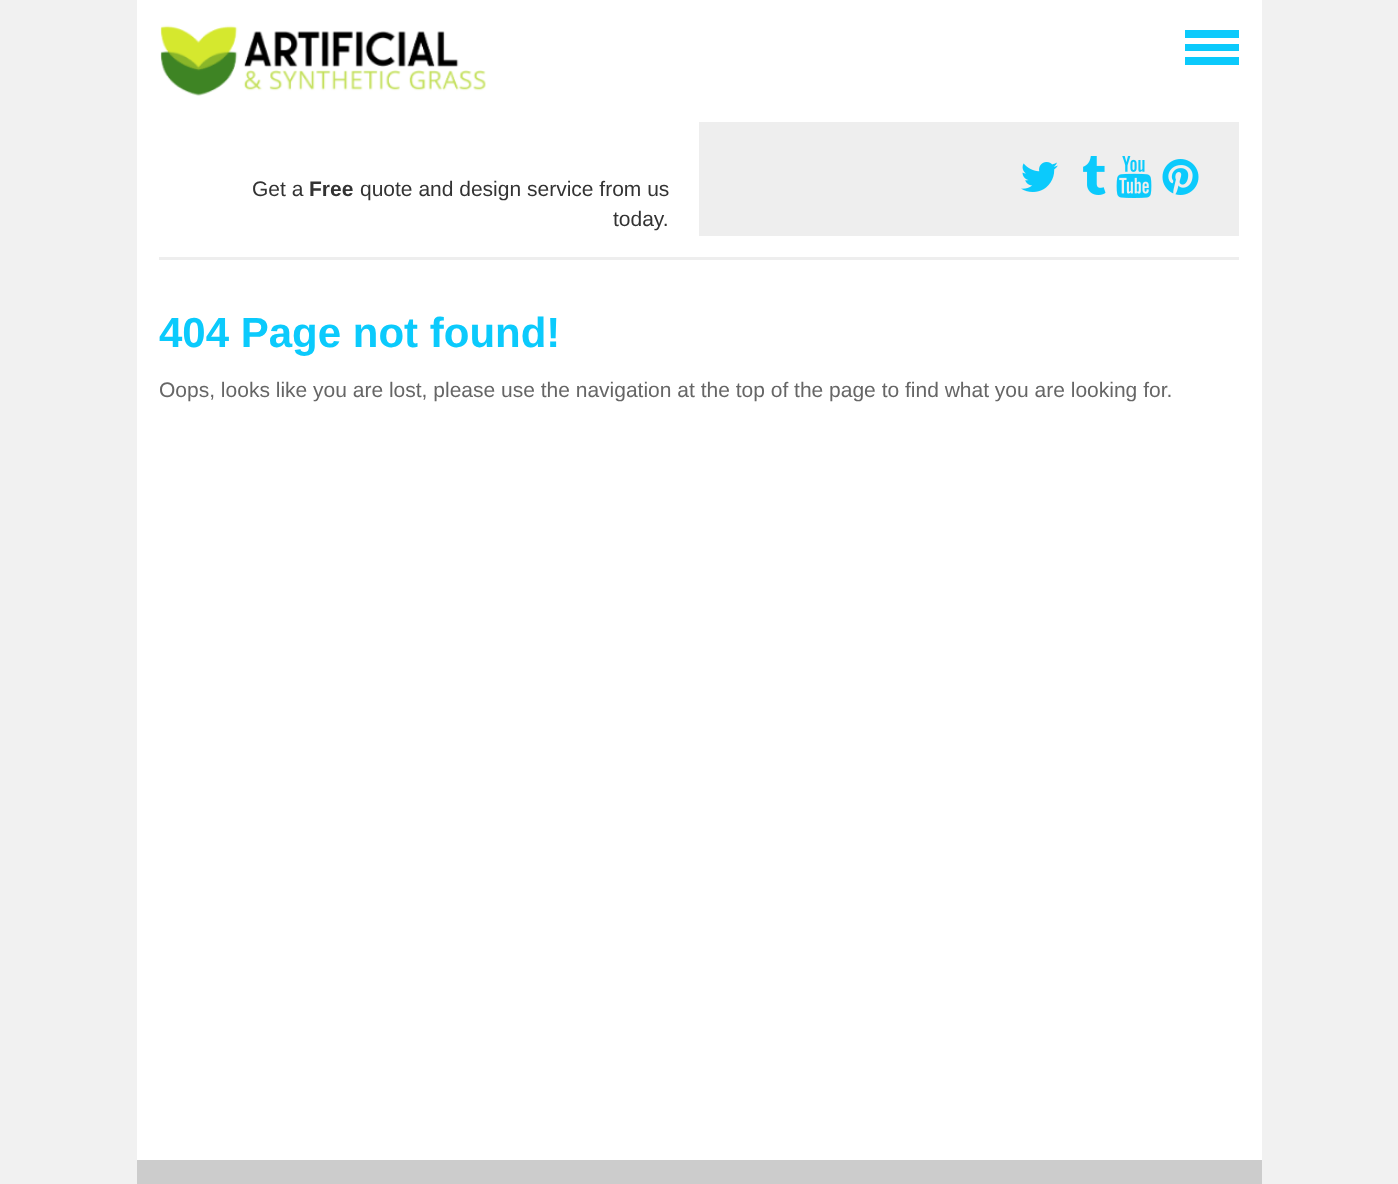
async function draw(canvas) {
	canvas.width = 1398;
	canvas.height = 1184;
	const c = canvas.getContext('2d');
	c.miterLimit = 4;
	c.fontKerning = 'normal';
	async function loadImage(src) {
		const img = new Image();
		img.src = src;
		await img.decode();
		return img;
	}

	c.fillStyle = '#f1f1f1';
	c.fillRect(0, 0, 1398, 1184);
	c.fillStyle = '#fff';
	c.fillRect(137, 0, 1125, 1160);
	c.drawImage(await loadImage('img1.png'), 160, 25, 326, 71);
	for (const [x, y, w, h, color] of [
		[159, 257, 1080, 3, '#eee'],
		[1185, 30, 54, 8, '#0bcafc'],
		[1185, 44, 54, 7, '#0bcafc'],
		[1185, 57, 54, 8, '#0bcafc'],
	]) {
		c.fillStyle = color;
		c.fillRect(x, y, w, h);
	}
	c.font = '21px Liberation Sans';
	c.fillStyle = '#333';
	c.fillText('Get a', 252, 196);
	c.font = 'bold 21px Liberation Sans';
	c.fillText('Free', 309, 196);
	c.font = '21px Liberation Sans';
	c.fillText('quote and design service from us', 360, 196);
	c.fillText('today.', 613, 226);
	c.fillStyle = '#eee';
	c.fillRect(699, 122, 540, 114);
	c.drawImage(await loadImage('img2.png'), 1021, 162, 37, 30);
	c.drawImage(await loadImage('img3.png'), 1083, 156, 23, 39);
	c.drawImage(await loadImage('img4.png'), 1116, 156, 36, 42);
	c.drawImage(await loadImage('img5.png'), 1162, 159, 37, 36);
	c.font = 'bold 42px Liberation Sans';
	c.fillStyle = '#0bcafc';
	c.fillText('404 Page not found!', 159, 347);
	c.font = '21px Liberation Sans';
	c.fillStyle = '#666';
	c.fillText('Oops, looks like you are lost, please use the navigation at the top of the page to find what you are looking for.', 159, 397);
	c.fillStyle = '#ccc';
	c.fillRect(137, 1160, 1125, 24);
}

draw(document.querySelector('canvas'));
